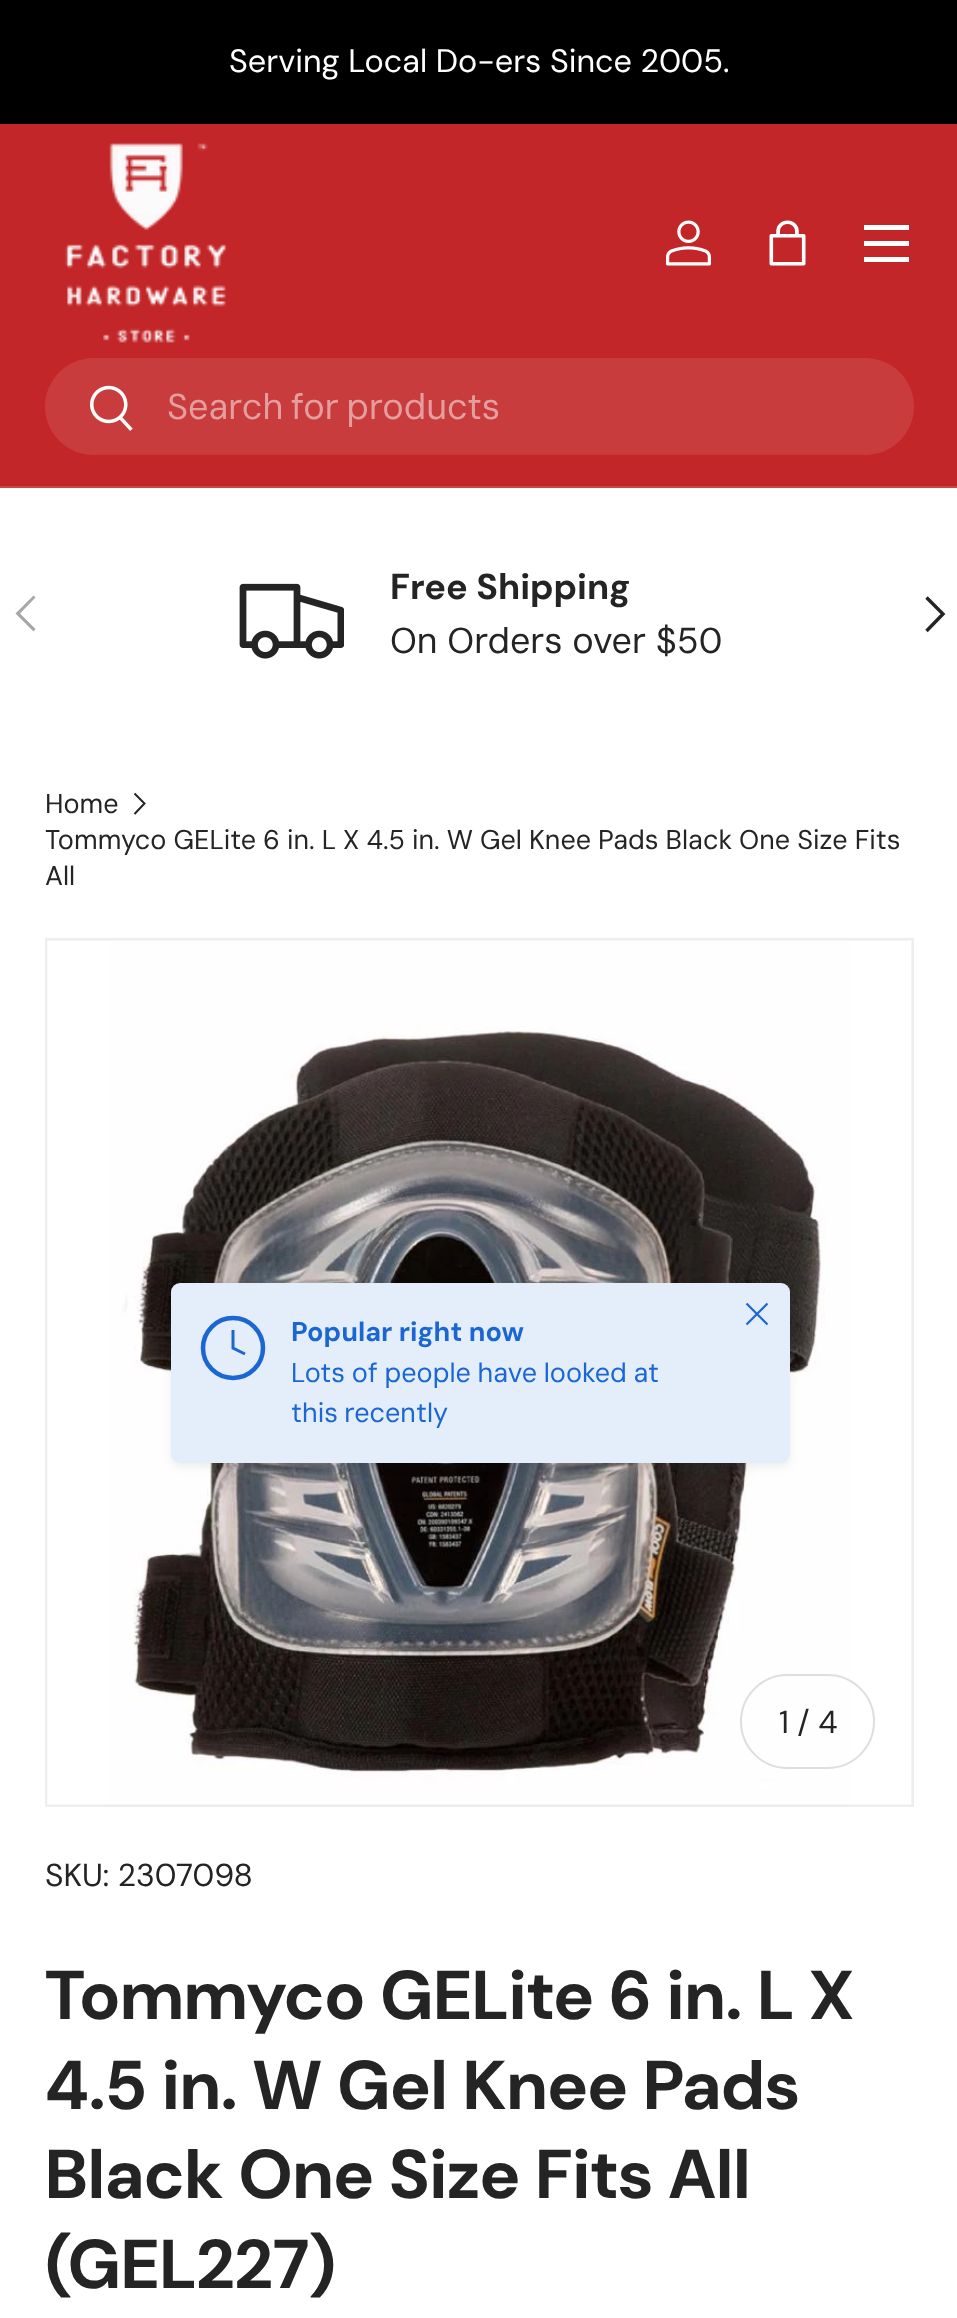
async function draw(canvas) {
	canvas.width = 957;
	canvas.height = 2318;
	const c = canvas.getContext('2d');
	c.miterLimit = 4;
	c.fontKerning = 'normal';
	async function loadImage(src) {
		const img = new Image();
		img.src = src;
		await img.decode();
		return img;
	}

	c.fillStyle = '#fff';
	c.fillRect(0, 0, 957, 2318);
	c.fillStyle = '#000';
	c.fillRect(0, 0, 957, 124);
	c.font = '32.4px "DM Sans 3"';
	c.fillStyle = '#fff';
	c.fillText('Serving Local Do-ers Since 2005.', 229, 72);
	c.fillStyle = '#c32628';
	c.fillRect(0, 124, 957, 362);
	c.fillStyle = '#cc4748';
	c.fillRect(0, 486, 957, 2);
	c.drawImage(await loadImage('img1.png'), 65, 143, 163, 200);
	c.drawImage(await loadImage('img2.png'), 666, 220, 45, 46);
	c.drawImage(await loadImage('img3.png'), 769, 220, 37, 46);
	for (const [x, y, w, h, color] of [
		[864, 225, 45, 5, '#fff'],
		[864, 257, 45, 5, '#fff'],
		[864, 241, 45, 5, '#fff'],
	]) {
		c.fillStyle = color;
		c.fillRect(x, y, w, h);
	}
	c.fillStyle = '#c93c3d';
	c.beginPath();
	c.roundRect(45, 358, 869, 97, 48.5);
	c.fill();
	c.drawImage(await loadImage('img4.png'), 90, 385, 43, 46);
	c.wordSpacing = '-2px';
	c.font = '36px DM Sans';
	c.fillStyle = '#e49e9e';
	c.fillText('Search for products', 167, 419);
	c.drawImage(await loadImage('img5.png'), 239, 583, 105, 76);
	c.wordSpacing = '0px';
	c.font = 'bold 36px "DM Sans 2"';
	c.fillStyle = '#252424';
	c.fillText('Free Shipping', 390, 599);
	c.font = '36px DM Sans';
	c.fillText('On Orders over $50', 390, 653);
	c.fillStyle = '#a8a7a7';
	c.beginPath();
	c.moveTo(15.5, 613.5);
	c.lineTo(33.5, 595.5);
	c.lineTo(35.5, 597.5);
	c.lineTo(20, 613.5);
	c.lineTo(35.5, 629);
	c.lineTo(33.5, 631.5);
	c.closePath();
	c.fill();
	c.beginPath();
	c.moveTo(926.5, 597.5);
	c.lineTo(943, 614);
	c.lineTo(926.5, 631);
	c.strokeStyle = '#252424';
	c.lineWidth = 3.4;
	c.stroke();
	c.font = '27px DM Sans';
	c.fillStyle = '#252424';
	c.fillText('Home', 45, 813);
	c.beginPath();
	c.moveTo(134.5, 793.5);
	c.lineTo(144.5, 803.5);
	c.lineTo(134.5, 814);
	c.lineWidth = 2;
	c.stroke();
	c.wordSpacing = '-0.25px';
	c.fillText('Tommyco GELite 6 in. L X 4.5 in. W Gel Knee Pads Black One Size Fits', 45, 849);
	c.wordSpacing = '0px';
	c.fillText('All', 45, 885);
	c.fillStyle = '#f4f4f4';
	c.beginPath();
	c.rect(46, 939, 867, 867);
	c.fill();
	c.strokeStyle = '#eee';
	c.stroke();
	c.drawImage(await loadImage('img6.png'), 47, 941, 864, 863);
	c.fillStyle = '#212b3614';
	c.filter = 'blur(4.5px)';
	c.beginPath();
	c.roundRect(171, 1287, 619, 180, 9);
	c.fill();
	c.filter = 'none';
	c.fillStyle = '#e4edfa';
	c.beginPath();
	c.roundRect(171, 1283, 619, 180, 9);
	c.fill();
	c.beginPath();
	c.arc(233, 1348, 30, 0, 2 * Math.PI);
	c.strokeStyle = '#1a66d2';
	c.lineWidth = 4.5;
	c.stroke();
	c.beginPath();
	c.moveTo(233, 1330);
	c.lineTo(233, 1348);
	c.lineTo(245, 1354);
	c.lineWidth = 3;
	c.stroke();
	c.font = 'bold 27px "DM Sans 3"';
	c.fillStyle = '#1a66d2';
	c.fillText('Popular right now', 291, 1341);
	c.wordSpacing = '-0.5px';
	c.font = '27px DM Sans';
	c.fillText('Lots of people have looked at', 291, 1382);
	c.wordSpacing = '-1px';
	c.fillText('this recently', 291, 1422);
	c.beginPath();
	c.moveTo(746.5, 1324.5);
	c.lineTo(767.5, 1303.5);
	c.moveTo(746.5, 1303.5);
	c.lineTo(767.5, 1324.5);
	c.lineWidth = 2.2;
	c.lineJoin = 'round';
	c.stroke();
	c.beginPath();
	c.roundRect(741, 1675, 133, 93, 46.5);
	c.strokeStyle = '#dedede';
	c.lineWidth = 2;
	c.lineJoin = 'miter';
	c.stroke();
	c.wordSpacing = '0px';
	c.font = '31.75px "DM Sans 2"';
	c.fillStyle = '#252424';
	c.fillText('1 / 4', 779, 1733);
	c.fillText('SKU: 2307098', 45, 1886);
	c.font = 'bold 69px DM Sans';
	for (const [text, x, y] of [
		['Tommyco GELite 6 in. L X', 45, 2019],
		['4.5 in. W Gel Knee Pads', 45, 2109],
		['Black One Size Fits All', 45, 2198],
		['(GEL227)', 45, 2288],
	]) {
		c.fillText(text, x, y);
	}
}

draw(document.querySelector('canvas'));
